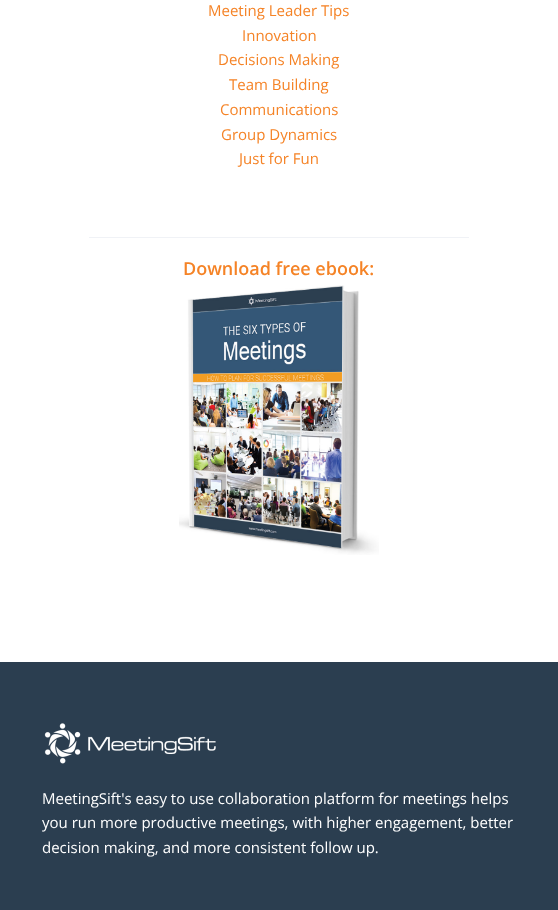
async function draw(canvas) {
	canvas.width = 558;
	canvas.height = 910;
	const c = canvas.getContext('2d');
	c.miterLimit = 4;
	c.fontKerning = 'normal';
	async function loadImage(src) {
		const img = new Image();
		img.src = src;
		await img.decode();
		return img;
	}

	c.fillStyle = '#fff';
	c.fillRect(0, 0, 558, 910);
	c.font = '15px Open Sans';
	c.fillStyle = '#f58326';
	for (const [text, x, y] of [
		['Meeting Leader Tips', 208, 16],
		['Innovation', 242, 41],
		['Decisions Making', 218, 65],
		['Team Building', 229, 90],
		['Communications', 220, 115],
		['Group Dynamics', 221, 140],
		['Just for Fun', 239, 164],
	]) {
		c.fillText(text, x, y);
	}
	c.fillStyle = '#f0f2f6';
	c.fillRect(89, 237, 380, 1);
	c.font = '600 18px Open Sans';
	c.fillStyle = '#f58326';
	c.fillText('Download free ebook:', 183, 275);
	c.drawImage(await loadImage('img1.png'), 179, 285, 200, 270);
	c.fillStyle = '#2b3e50';
	c.fillRect(0, 662, 558, 248);
	c.drawImage(await loadImage('img2.png'), 44, 723, 172, 41);
	c.font = '15px Open Sans';
	c.fillStyle = '#fff';
	for (const [text, x, y] of [
		['MeetingSift\'s easy to use collaboration platform for meetings helps', 42, 804],
		['you run more productive meetings, with higher engagement, better', 42, 828],
		['decision making, and more consistent follow up.', 42, 853],
	]) {
		c.fillText(text, x, y);
	}
}

draw(document.querySelector('canvas'));
